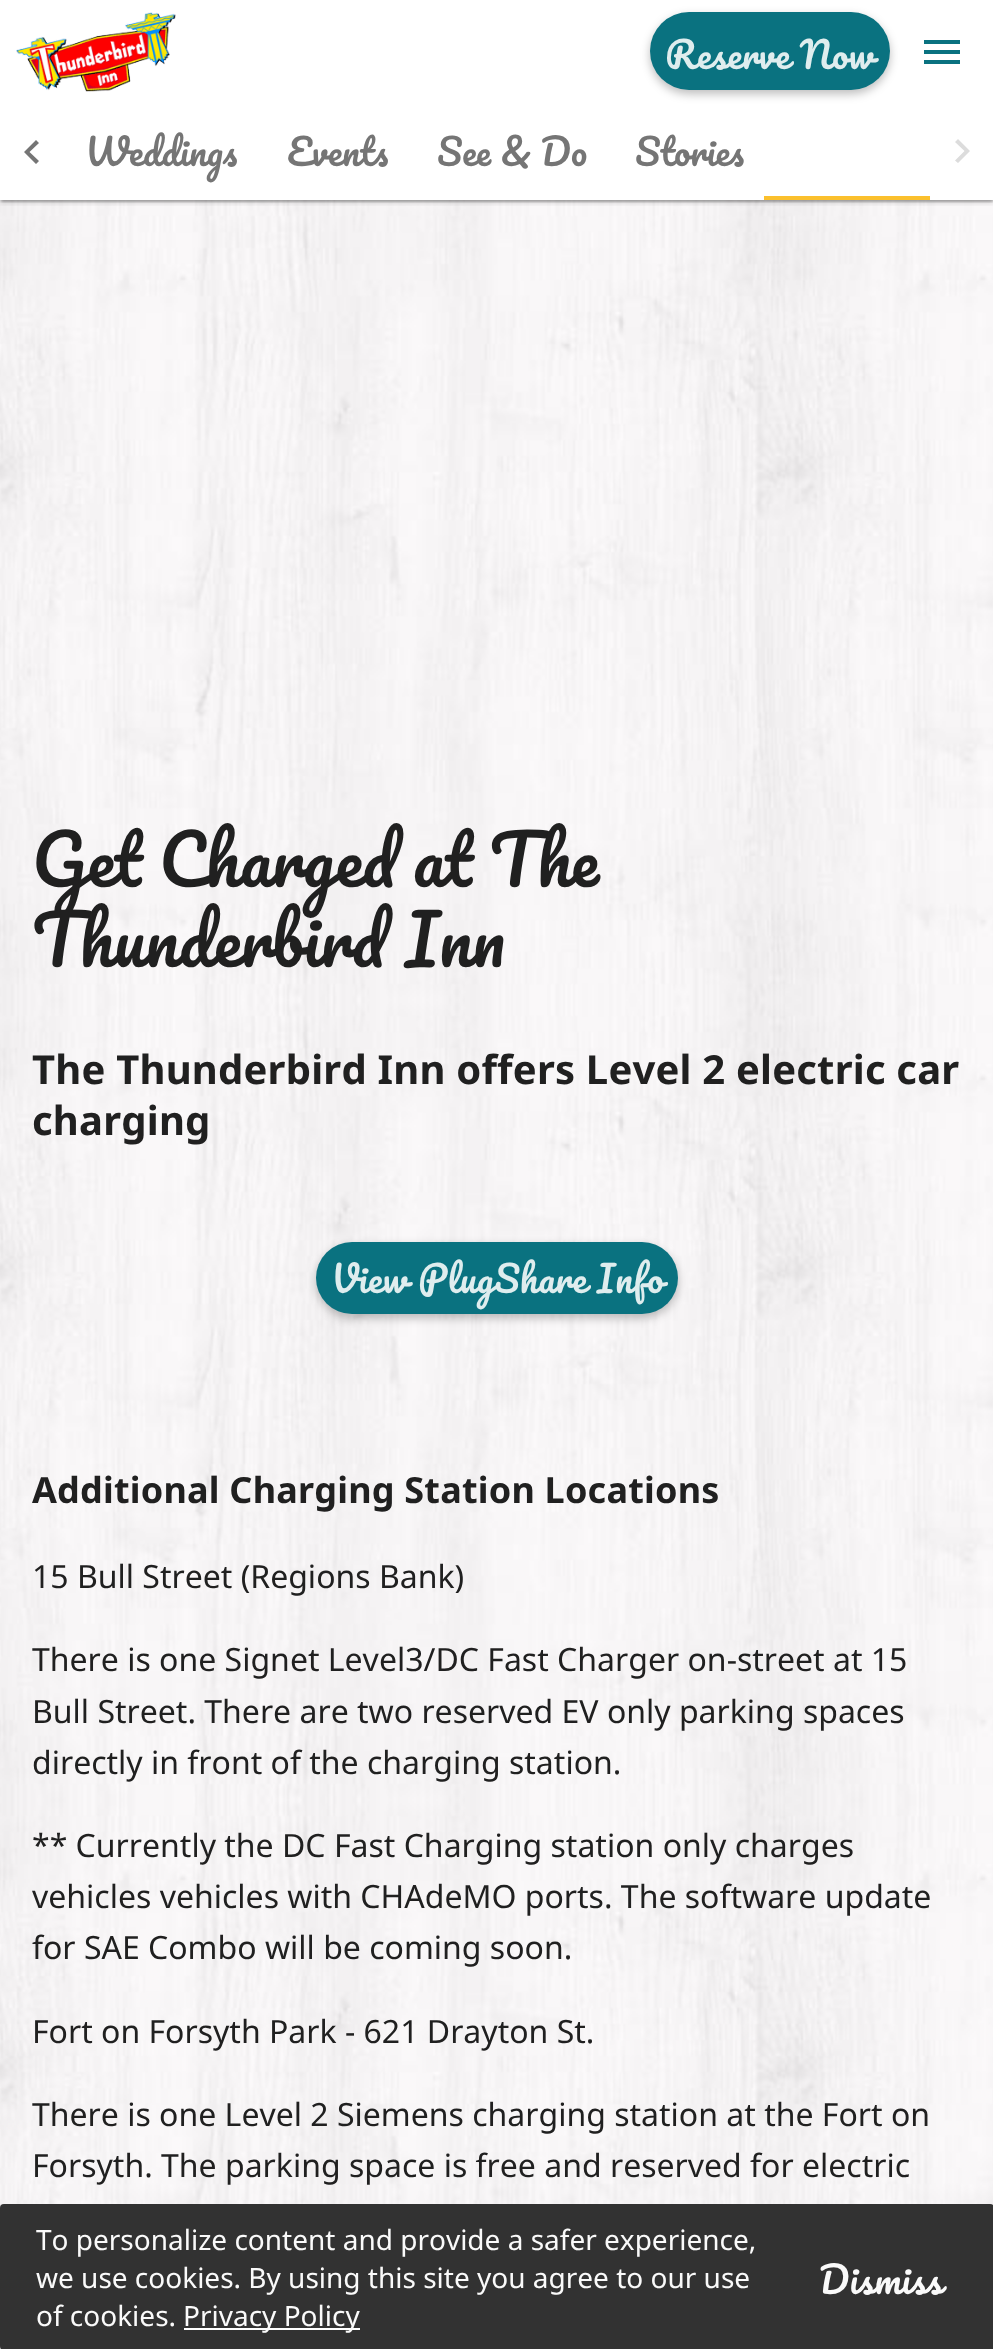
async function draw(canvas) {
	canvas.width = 993;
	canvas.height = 2349;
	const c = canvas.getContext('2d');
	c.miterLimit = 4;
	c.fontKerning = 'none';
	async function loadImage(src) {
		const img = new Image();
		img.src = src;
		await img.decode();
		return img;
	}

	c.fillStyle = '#fff';
	c.fillRect(0, 0, 993, 2349);
	c.drawImage(await loadImage('img2.png'), 0, 200, 993, 2149);
	c.save();
	c.beginPath();
	c.rect(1, 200, 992, 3);
	c.clip();
	c.fillStyle = '#0000001f';
	c.filter = 'blur(1px)';
	c.beginPath();
	c.rect(2, 6, 990, 196);
	c.fill();
	c.filter = 'none';
	c.restore();
	c.save();
	c.beginPath();
	c.rect(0, 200, 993, 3);
	c.clip();
	c.fillStyle = '#00000024';
	c.filter = 'blur(1px)';
	c.beginPath();
	c.rect(0, 2, 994, 200);
	c.fill();
	c.filter = 'none';
	c.restore();
	c.save();
	c.beginPath();
	c.rect(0, 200, 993, 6);
	c.clip();
	c.fillStyle = '#00000033';
	c.filter = 'blur(3px)';
	c.beginPath();
	c.rect(0, 2, 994, 200);
	c.fill();
	c.filter = 'none';
	c.restore();
	c.drawImage(await loadImage('img1.png'), 16, 12, 160, 80);
	c.fillStyle = '#00000042';
	c.filter = 'blur(5px)';
	c.beginPath();
	c.roundRect(650, 16, 240, 78, 39);
	c.fill();
	c.filter = 'none';
	c.fillStyle = '#0a7280';
	c.beginPath();
	c.roundRect(650, 12, 240, 78, 39);
	c.fill();
	c.letterSpacing = '0.4px';
	c.font = '36px Pacifico';
	c.fillStyle = '#dfedee';
	c.fillText('Reserve Now', 665, 69);
	c.fillStyle = '#0a7280';
	c.beginPath();
	c.moveTo(924, 40);
	c.lineTo(960, 40);
	c.lineTo(960, 44);
	c.lineTo(924, 44);
	c.closePath();
	c.moveTo(924, 54);
	c.lineTo(924, 50);
	c.lineTo(960, 50);
	c.lineTo(960, 54);
	c.closePath();
	c.moveTo(924, 64);
	c.lineTo(924, 60);
	c.lineTo(960, 60);
	c.lineTo(960, 64);
	c.closePath();
	c.fill();
	c.fillStyle = '#757575';
	c.beginPath();
	c.moveTo(39, 143);
	c.lineTo(36, 140);
	c.lineTo(24, 152);
	c.lineTo(36, 164);
	c.lineTo(39, 161);
	c.lineTo(29.5, 152);
	c.closePath();
	c.fill();
	c.letterSpacing = '0px';
	for (const [text, x, y] of [
		['Weddings', 85, 166],
		['Events', 287, 166],
		['See & Do', 437, 166],
		['Stories', 635, 166],
	]) {
		c.fillText(text, x, y);
	}
	c.fillStyle = '#fbc02d';
	c.fillRect(764, 196, 166, 4);
	c.fillStyle = '#dcdcdc';
	c.beginPath();
	c.moveTo(955, 160.5);
	c.lineTo(958, 163);
	c.lineTo(970, 151);
	c.lineTo(958, 139);
	c.lineTo(955, 142);
	c.lineTo(964.5, 151);
	c.closePath();
	c.fill();
	c.wordSpacing = '-1px';
	c.font = '68px Pacifico';
	c.fillStyle = '#202020';
	c.fillText('Get Charged at The', 32, 887);
	c.wordSpacing = '2px';
	c.fillText('Thunderbird Inn', 32, 967);
	c.letterSpacing = '0.2px';
	c.wordSpacing = '0px';
	c.font = 'bold 40px Noto Sans';
	c.fillText('The Thunderbird Inn offers Level 2 electric car', 32, 1084);
	c.fillText('charging', 32, 1135);
	c.fillStyle = '#00000042';
	c.filter = 'blur(5px)';
	c.beginPath();
	c.roundRect(316, 1246, 362, 72, 36);
	c.fill();
	c.filter = 'none';
	c.fillStyle = '#0a7280';
	c.beginPath();
	c.roundRect(316, 1242, 362, 72, 36);
	c.fill();
	c.letterSpacing = '0.4px';
	c.font = '36px Pacifico';
	c.fillStyle = '#dfedee';
	c.fillText('View PlugShare Info', 331, 1293);
	c.letterSpacing = '0.2px';
	c.font = 'bold 36px Noto Sans';
	c.fillStyle = '#202020';
	c.fillText('Additional Charging Station Locations', 32, 1503);
	c.letterSpacing = '0px';
	c.font = '32px Noto Sans';
	for (const [text, x, y] of [
		['15 Bull Street (Regions Bank)', 32, 1588],
		['There is one Signet Level3/DC Fast Charger on-street at 15', 32, 1671],
		['Bull Street. There are two reserved EV only parking spaces', 32, 1723],
		['directly in front of the charging station.', 32, 1774],
		['** Currently the DC Fast Charging station only charges', 32, 1857],
		['vehicles vehicles with CHAdeMO ports. The software update', 32, 1908],
		['for SAE Combo will be coming soon.', 32, 1959],
		['Fort on Forsyth Park - 621 Drayton St.', 32, 2043],
		['There is one Level 2 Siemens charging station at the Fort on', 32, 2126],
		['Forsyth. The parking space is free and reserved for electric', 32, 2177],
	]) {
		c.fillText(text, x, y);
	}
	c.save();
	c.beginPath();
	c.rect(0, 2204, 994, 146);
	c.clip();
	c.fillStyle = '#00000042';
	c.filter = 'blur(5px)';
	c.beginPath();
	c.roundRect(0, 2208, 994, 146, 4);
	c.fill();
	c.filter = 'none';
	c.restore();
	c.fillStyle = '#323232';
	c.beginPath();
	c.roundRect(0, 2204, 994, 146, 4);
	c.fill();
	c.font = '28px Noto Sans';
	c.fillStyle = '#fafafa';
	for (const [text, x, y] of [
		['To personalize content and provide a safer experience,', 36, 2250],
		['we use cookies. By using this site you agree to our use', 36, 2288],
		['of cookies.', 36, 2326],
	]) {
		c.fillText(text, x, y);
	}
	c.fillStyle = '#fff';
	c.fillRect(184, 2328, 176, 2);
	c.fillStyle = '#fafafa';
	c.fillText('Privacy Policy', 183, 2326);
	c.letterSpacing = '0.4px';
	c.font = '36px Pacifico';
	c.fillText('Dismiss', 819, 2294);
}

draw(document.querySelector('canvas'));
